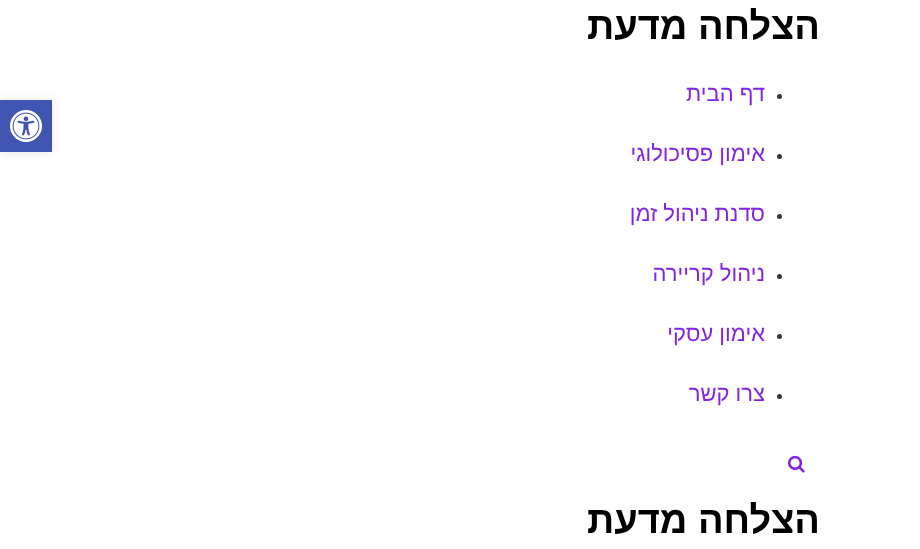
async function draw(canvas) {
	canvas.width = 920;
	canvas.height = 549;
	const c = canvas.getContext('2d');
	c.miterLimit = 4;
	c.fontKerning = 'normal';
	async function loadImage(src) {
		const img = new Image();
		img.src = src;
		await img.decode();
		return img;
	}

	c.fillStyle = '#fff';
	c.fillRect(0, 0, 920, 549);
	c.direction = 'rtl';
	c.font = 'bold 38px Liberation Sans';
	c.fillStyle = '#000';
	c.fillText('הצלחה מדעת', 820, 39);
	c.fillStyle = '#353535';
	c.beginPath();
	c.arc(779.5, 96.5, 2.5, 0, 2 * Math.PI);
	c.fill();
	c.font = '22px Liberation Sans';
	c.fillStyle = '#8224e3';
	c.fillText('דף הבית', 765, 101);
	c.fillStyle = '#353535';
	c.beginPath();
	c.arc(779.5, 156.5, 2.5, 0, 2 * Math.PI);
	c.fill();
	c.fillStyle = '#8224e3';
	c.fillText('אימון פסיכולוגי', 765, 161);
	c.fillStyle = '#353535';
	c.beginPath();
	c.arc(779.5, 216.5, 2.5, 0, 2 * Math.PI);
	c.fill();
	c.fillStyle = '#8224e3';
	c.fillText('סדנת ניהול זמן', 765, 221);
	c.fillStyle = '#353535';
	c.beginPath();
	c.arc(779.5, 276.5, 2.5, 0, 2 * Math.PI);
	c.fill();
	c.fillStyle = '#8224e3';
	c.fillText('ניהול קריירה', 765, 281);
	c.fillStyle = '#353535';
	c.beginPath();
	c.arc(779.5, 336.5, 2.5, 0, 2 * Math.PI);
	c.fill();
	c.fillStyle = '#8224e3';
	c.fillText('אימון עסקי', 765, 341);
	c.fillStyle = '#353535';
	c.beginPath();
	c.arc(779.5, 396.5, 2.5, 0, 2 * Math.PI);
	c.fill();
	c.fillStyle = '#8224e3';
	c.fillText('צרו קשר', 765, 401);
	c.drawImage(await loadImage('img1.png'), 788, 455, 17, 18);
	c.font = 'bold 38px Liberation Sans';
	c.fillStyle = '#000';
	c.fillText('הצלחה מדעת', 820, 533);
	c.fillStyle = '#0000001a';
	c.filter = 'blur(5px)';
	c.beginPath();
	c.rect(0, 100, 52, 52);
	c.fill();
	c.filter = 'none';
	c.fillStyle = '#4054b2';
	c.fillRect(0, 100, 52, 52);
	c.drawImage(await loadImage('img2.png'), 10, 110, 32, 32);
}

draw(document.querySelector('canvas'));
